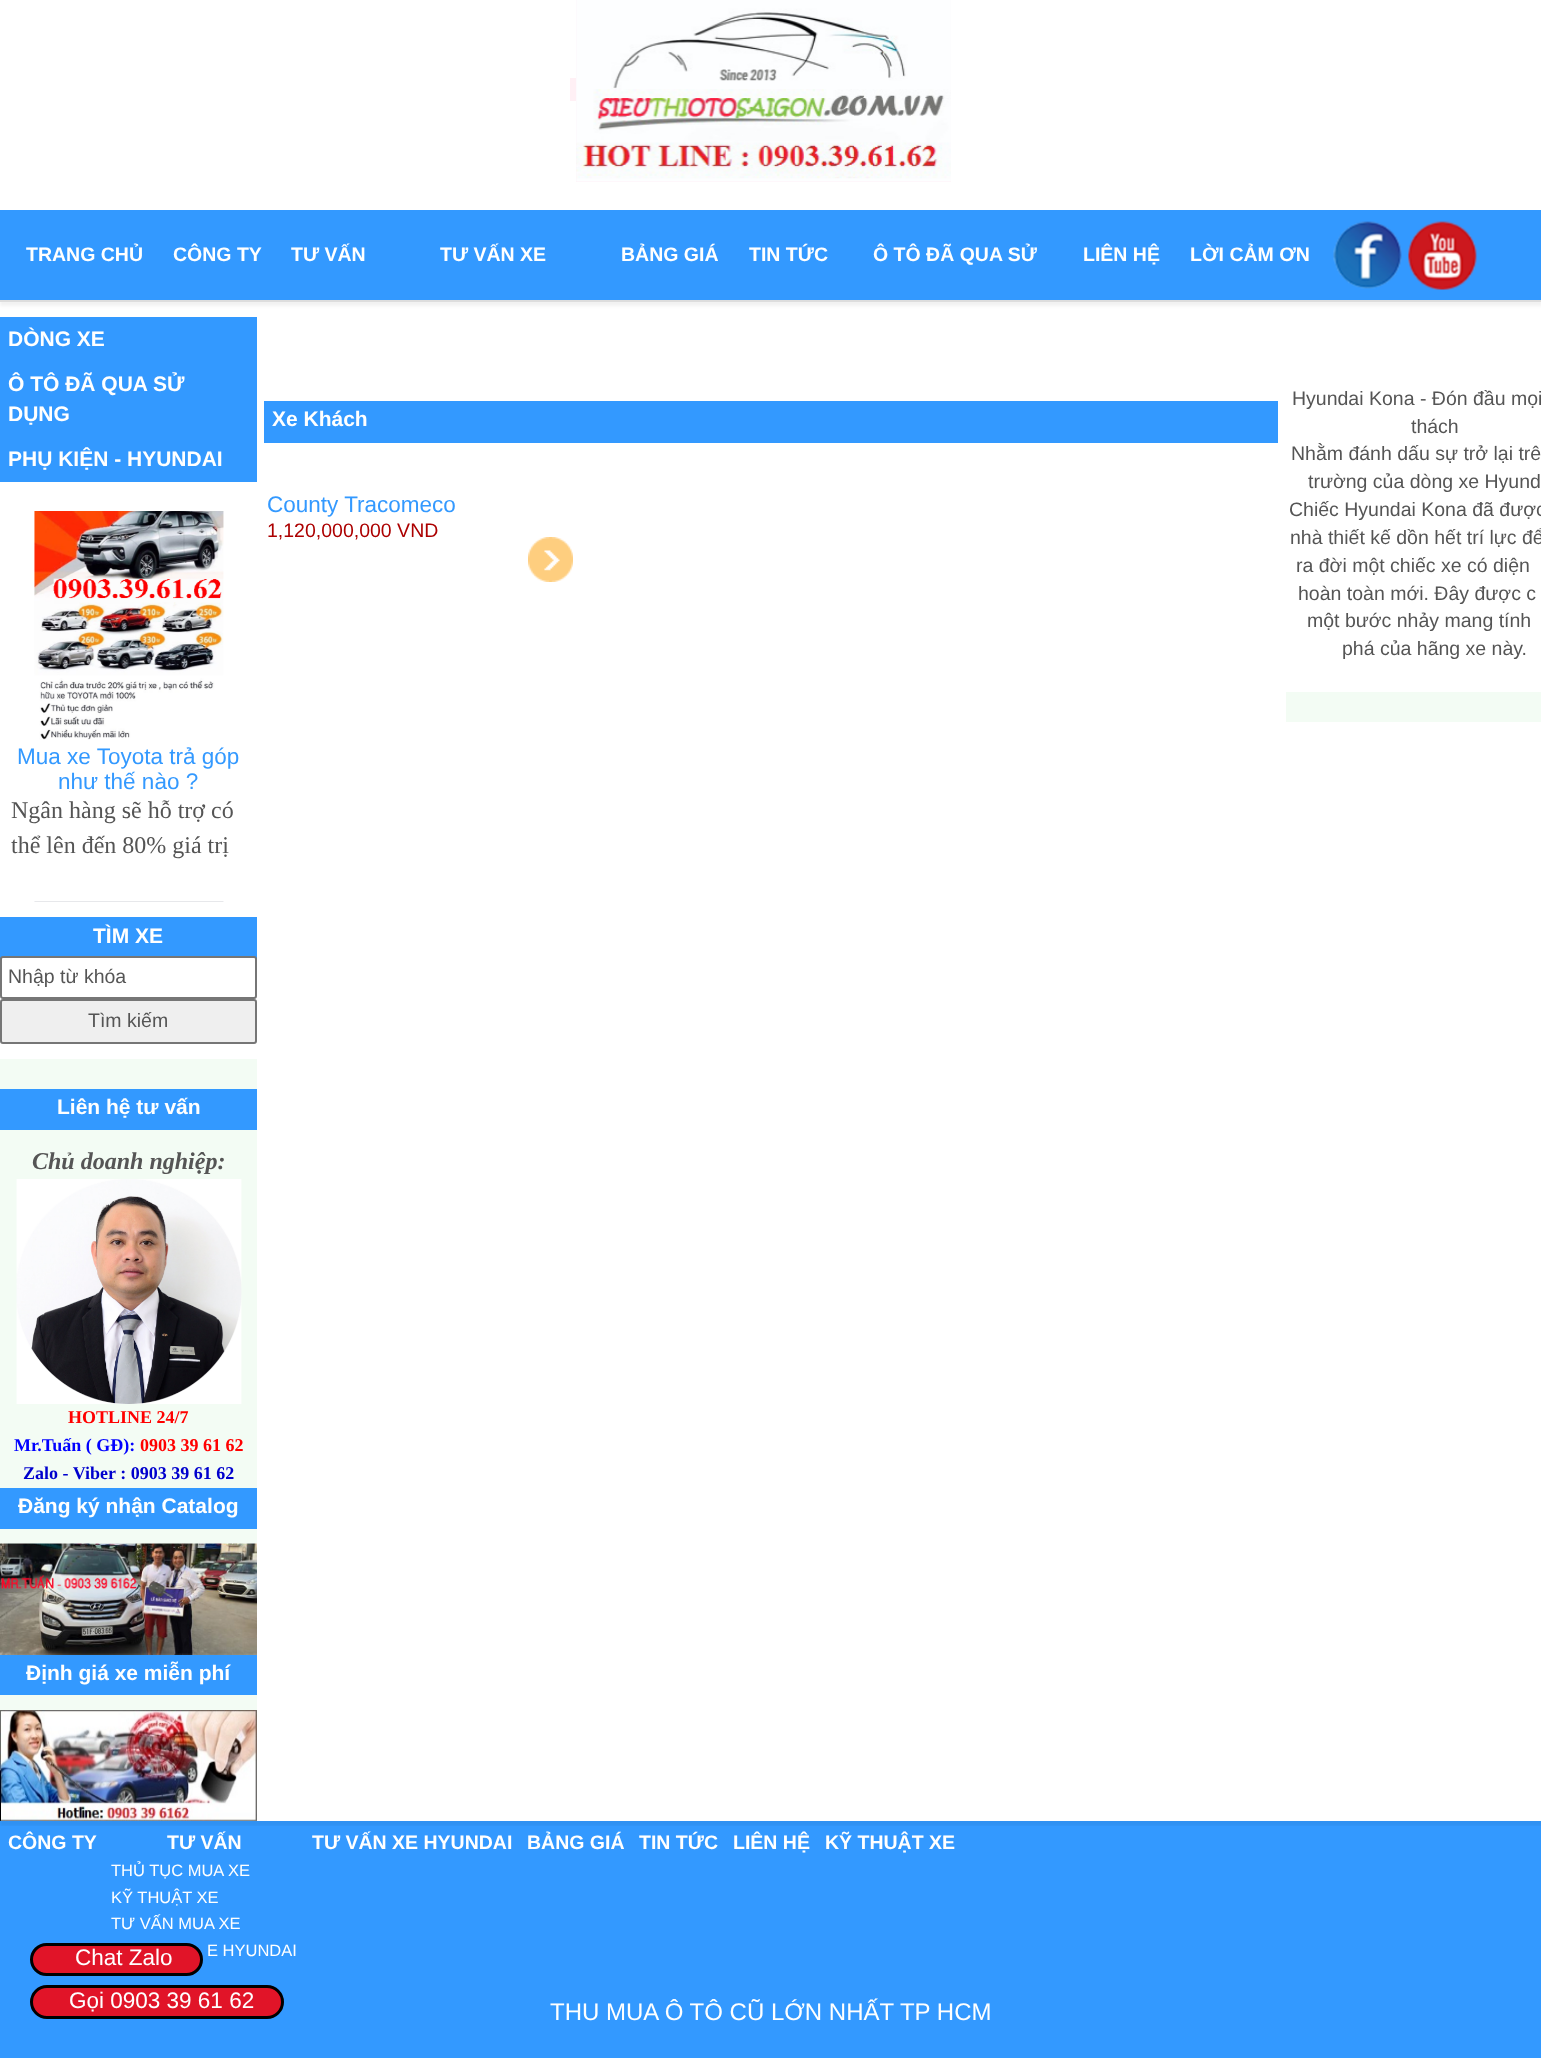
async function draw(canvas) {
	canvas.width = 1541;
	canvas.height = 2058;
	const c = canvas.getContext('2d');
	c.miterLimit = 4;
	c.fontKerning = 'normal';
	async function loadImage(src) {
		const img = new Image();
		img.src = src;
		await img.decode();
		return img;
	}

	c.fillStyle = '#fff';
	c.fillRect(0, 0, 1541, 2058);
	c.fillStyle = '#fff0f5';
	c.fillRect(576, 0, 375, 182);
	c.fillRect(570, 78, 6, 23);
	c.drawImage(await loadImage('img1.png'), 576, 0, 375, 182);
	c.fillStyle = '#0000000d';
	c.filter = 'blur(1.5px)';
	c.beginPath();
	c.rect(0, 215, 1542, 91);
	c.fill();
	c.filter = 'none';
	c.fillStyle = '#39f';
	c.fillRect(0, 210, 1541, 90);
	c.fillStyle = '#ddd';
	c.fillRect(0, 300, 1541, 2);
	c.font = 'bold 19.5px Liberation Sans';
	c.fillStyle = '#fff';
	for (const [text, x, y] of [
		['TRANG CHỦ', 26, 261],
		['CÔNG TY', 173, 261],
		['TƯ VẤN', 291, 261],
		['TƯ VẤN XE', 440, 261],
		['BẢNG GIÁ', 621, 261],
		['TIN TỨC', 749, 261],
		['Ô TÔ ĐÃ QUA SỬ', 873, 261],
		['LIÊN HỆ', 1083, 261],
		['LỜI CẢM ƠN', 1190, 261],
	]) {
		c.fillText(text, x, y);
	}
	c.drawImage(await loadImage('img2.png'), 1333, 221, 69, 68);
	c.drawImage(await loadImage('img3.png'), 1408, 221, 69, 69);
	c.fillStyle = '#39f';
	c.fillRect(0, 1821, 1541, 237);
	c.save();
	c.beginPath();
	c.rect(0, 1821, 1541, 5);
	c.clip();
	c.fillStyle = '#0000000d';
	c.filter = 'blur(1.5px)';
	c.beginPath();
	c.rect(0, 321, 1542, 1505);
	c.fill();
	c.filter = 'none';
	c.restore();
	c.fillRect(0, 317, 257, 165);
	c.font = 'bold 21px Liberation Sans';
	c.fillStyle = '#fff';
	for (const [text, x, y] of [
		['DÒNG XE', 8, 346],
		['Ô TÔ ĐÃ QUA SỬ', 8, 391],
		['DỤNG', 8, 421],
		['PHỤ KIỆN - HYUNDAI', 8, 466],
	]) {
		c.fillText(text, x, y);
	}
	c.drawImage(await loadImage('img4.png'), 34, 511, 190, 229);
	c.font = '22.5px Liberation Sans';
	c.fillStyle = '#39f';
	c.fillText('Mua xe Toyota trả góp', 17, 764);
	c.fillText('như thế nào ?', 58, 789);
	c.font = '24px Liberation Serif';
	c.fillStyle = '#555';
	c.fillText('Ngân hàng sẽ hỗ trợ có', 11, 818);
	c.fillText('thể lên đến 80% giá trị', 11, 853);
	c.drawImage(await loadImage('img5.png'), 34, 901, 190, 1);
	c.fillStyle = '#39f';
	c.fillRect(0, 917, 257, 42);
	c.font = 'bold 21px Liberation Sans';
	c.fillStyle = '#fff';
	c.fillText('TÌM XE', 93, 943);
	c.beginPath();
	c.roundRect(1, 957, 255, 41, 2);
	c.fill();
	c.strokeStyle = '#767676';
	c.lineWidth = 2;
	c.stroke();
	c.font = '19.5px Liberation Sans';
	c.fillStyle = '#555';
	c.fillText('Nhập từ khóa', 8, 983);
	c.fillStyle = '#efefef';
	c.beginPath();
	c.roundRect(1, 1000, 255, 43, 2);
	c.fill();
	c.stroke();
	c.fillStyle = '#555';
	c.fillText('Tìm kiếm', 88, 1027);
	for (const [x, y, w, h, color] of [
		[0, 1059, 257, 30, '#f3fcf4'],
		[0, 1130, 257, 358, '#f3fcf4'],
		[0, 1089, 257, 41, '#39f'],
	]) {
		c.fillStyle = color;
		c.fillRect(x, y, w, h);
	}
	c.font = 'bold 21px Liberation Sans';
	c.fillStyle = '#fff';
	c.fillText('Liên hệ tư vấn', 57, 1114);
	c.font = 'italic bold 24px Liberation Serif';
	c.fillStyle = '#555';
	c.fillText('Chủ doanh nghiệp:', 32, 1169);
	c.drawImage(await loadImage('img6.png'), 16, 1179, 226, 225);
	c.font = 'bold 18px Liberation Serif';
	c.fillStyle = '#f00';
	c.fillText('HOTLINE 24/7', 68, 1423);
	c.fillStyle = '#00f';
	c.fillText('Mr.Tuấn ( GĐ):', 14, 1451);
	c.fillStyle = '#f00';
	c.fillText('0903 39 61 62', 140, 1451);
	c.fillStyle = '#0000cd';
	c.fillText('Zalo - Viber : 0903 39 61 62', 23, 1479);
	c.fillStyle = '#f3fcf4';
	c.fillRect(0, 1529, 257, 126);
	c.fillStyle = '#39f';
	c.fillRect(0, 1488, 257, 41);
	c.font = 'bold 21px Liberation Sans';
	c.fillStyle = '#fff';
	c.fillText('Đăng ký nhận Catalog', 18, 1513);
	c.drawImage(await loadImage('img7.png'), 0, 1543, 257, 112);
	c.fillStyle = '#f3fcf4';
	c.fillRect(0, 1695, 257, 126);
	c.fillStyle = '#39f';
	c.fillRect(0, 1655, 257, 40);
	c.fillStyle = '#fff';
	c.fillText('Định giá xe miễn phí', 26, 1680);
	c.drawImage(await loadImage('img8.png'), 0, 1710, 257, 111);
	c.fillStyle = '#39f';
	c.fillRect(264, 401, 1014, 42);
	c.fillStyle = '#fff';
	c.fillText('Xe Khách', 272, 426);
	c.font = '22.5px Liberation Sans';
	c.fillStyle = '#39f';
	c.fillText('County Tracomeco', 267, 512);
	c.font = '19.5px Liberation Sans';
	c.fillStyle = '#ac0000';
	c.fillText('1,120,000,000 VND', 267, 537);
	c.drawImage(await loadImage('img9.png'), 528, 537, 45, 45);
	c.fillStyle = '#555';
	for (const [text, x, y] of [
		['Hyundai Kona - Đón đầu mọi', 1292, 405],
		['thách', 1411, 433],
		['Nhằm đánh dấu sự trở lại trê', 1291, 460],
		['trường của dòng xe Hyund', 1308, 488],
		['Chiếc Hyundai Kona đã được', 1289, 516],
		['nhà thiết kế dồn hết trí lực để', 1290, 544],
		['ra đời một chiếc xe có diện', 1296, 572],
		['hoàn toàn mới. Đây được c', 1298, 600],
		['một bước nhảy mang tính', 1307, 627],
		['phá của hãng xe này.', 1342, 655],
	]) {
		c.fillText(text, x, y);
	}
	c.fillStyle = '#f3fcf4';
	c.fillRect(1286, 692, 255, 30);
	c.font = 'bold 19.5px Liberation Sans';
	c.fillStyle = '#fff';
	c.fillText('CÔNG TY', 8, 1849);
	c.fillText('TƯ VẤN', 167, 1849);
	c.font = '16.5px Liberation Sans';
	for (const [text, x, y] of [
		['THỦ TỤC MUA XE', 111, 1876],
		['KỸ THUẬT XE', 111, 1903],
		['TƯ VẤN MUA XE', 111, 1929],
		['E HYUNDAI', 207, 1956],
	]) {
		c.fillText(text, x, y);
	}
	c.font = 'bold 19.5px Liberation Sans';
	for (const [text, x, y] of [
		['TƯ VẤN XE HYUNDAI', 312, 1849],
		['BẢNG GIÁ', 527, 1849],
		['TIN TỨC', 639, 1849],
		['LIÊN HỆ', 733, 1849],
		['KỸ THUẬT XE', 825, 1849],
	]) {
		c.fillText(text, x, y);
	}
	c.font = '24px Liberation Sans';
	c.fillText('THU MUA Ô TÔ CŨ LỚN NHẤT TP HCM', 550, 2020);
	c.fillStyle = '#e11428';
	c.beginPath();
	c.roundRect(31.5, 1944.5, 170, 30, 15);
	c.fill();
	c.strokeStyle = '#000';
	c.lineWidth = 3;
	c.stroke();
	c.font = '22.5px Liberation Sans';
	c.fillStyle = '#fff';
	c.fillText('Chat Zalo', 75, 1965);
	c.fillStyle = '#e11428';
	c.beginPath();
	c.roundRect(31.5, 1986.5, 251, 31, 15.5);
	c.fill();
	c.stroke();
	c.fillStyle = '#fff';
	c.fillText('Gọi 0903 39 61 62', 69, 2008);
}

draw(document.querySelector('canvas'));
